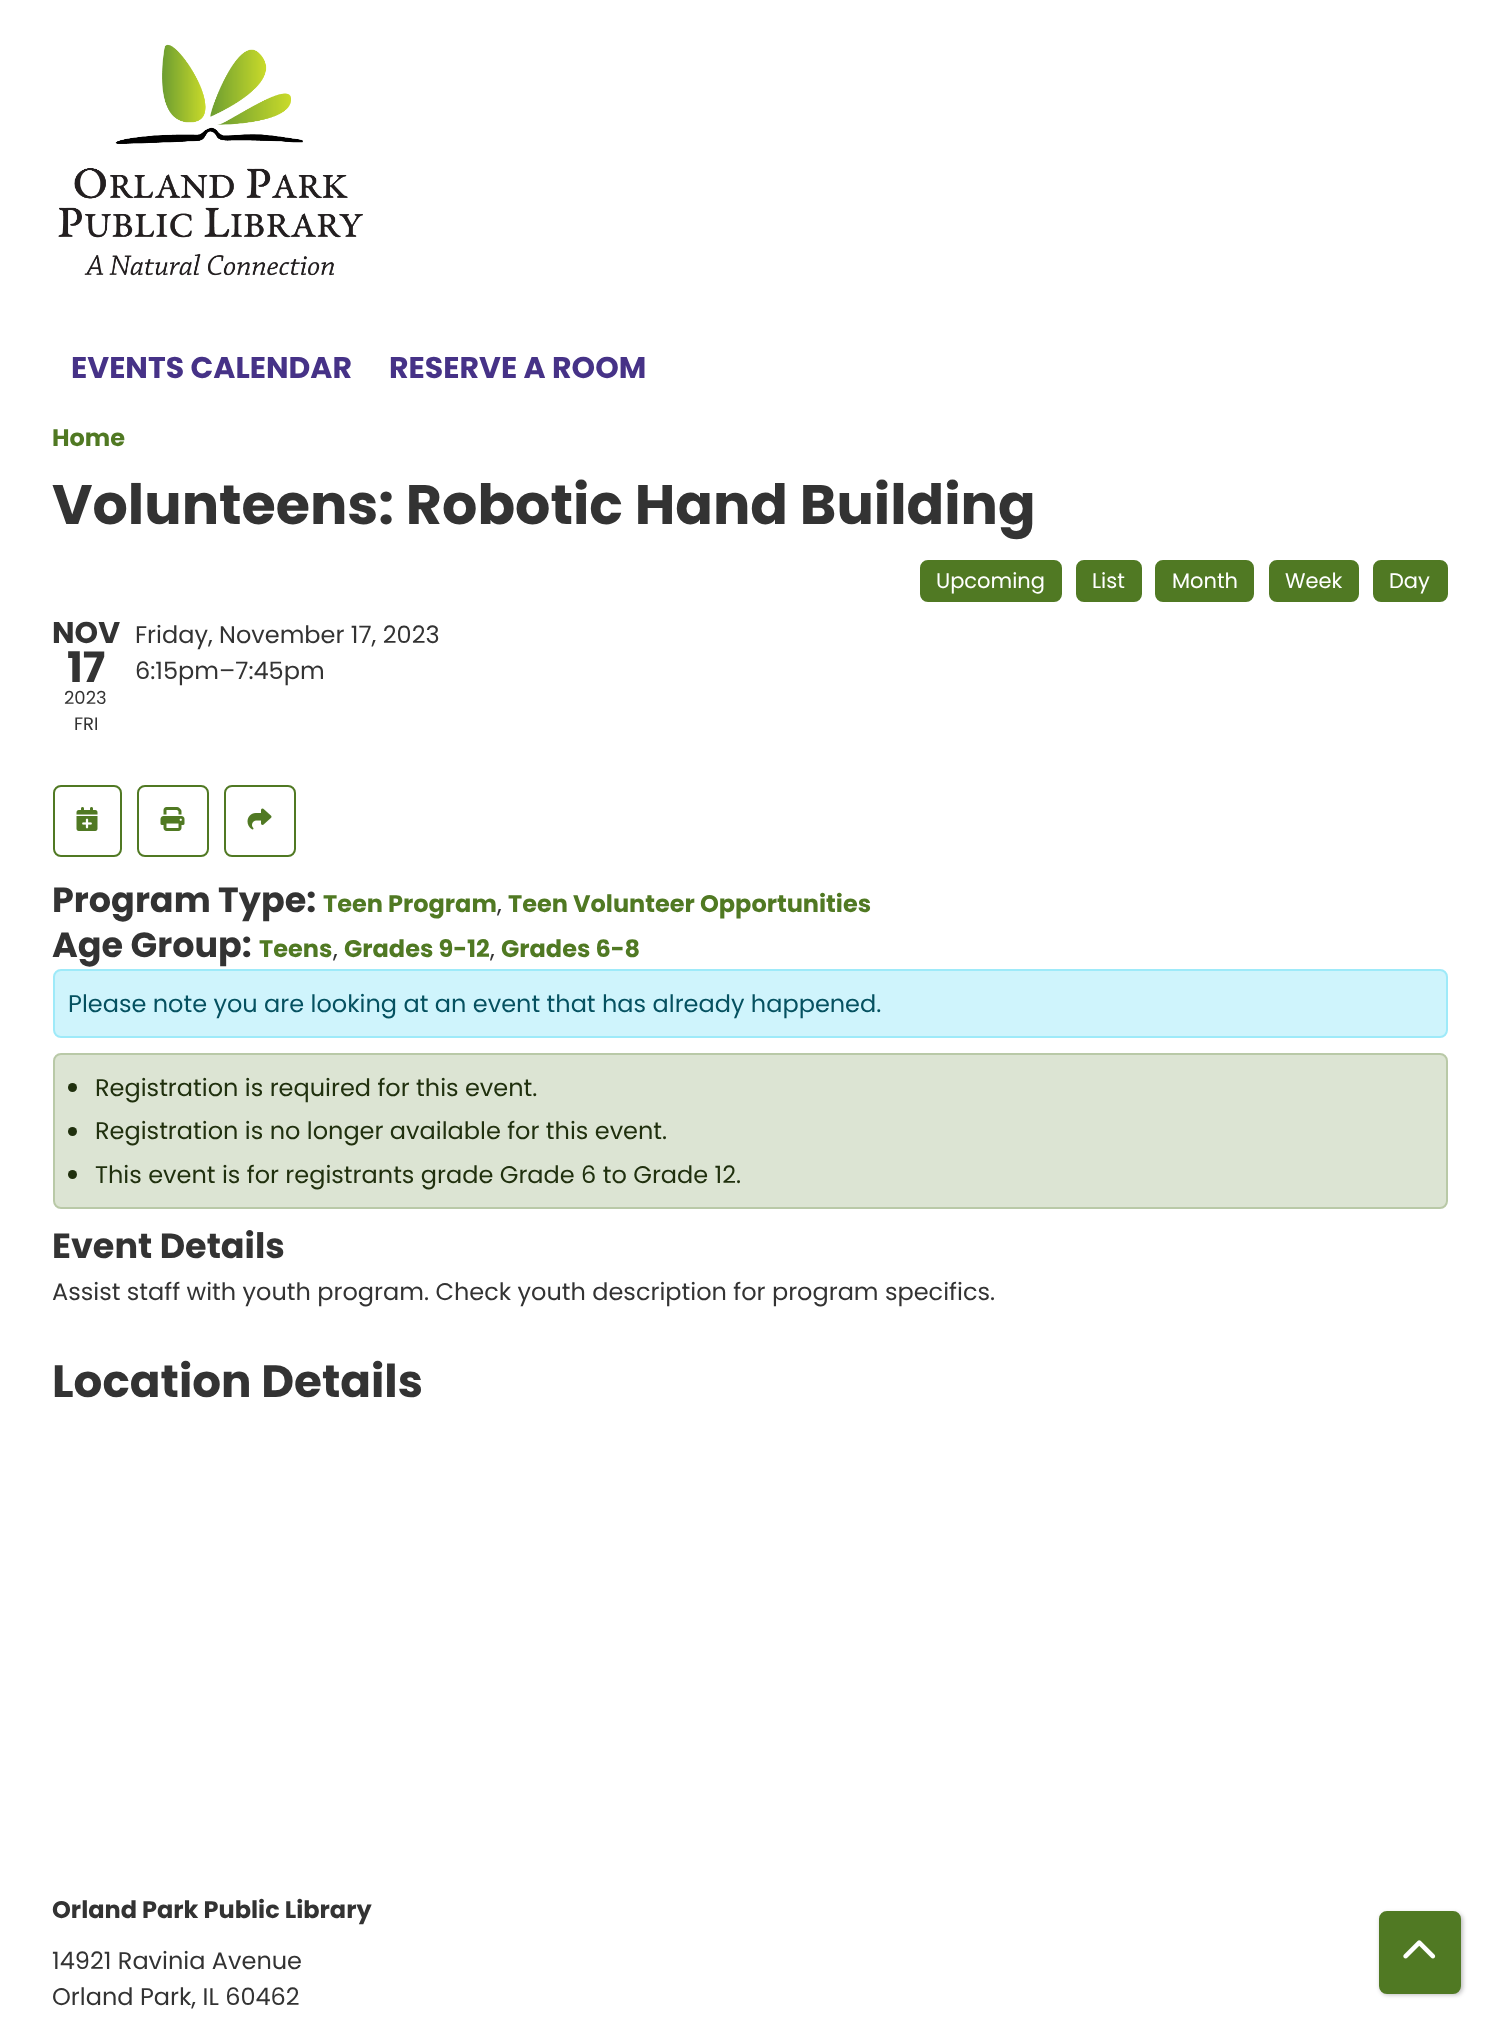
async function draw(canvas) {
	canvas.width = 1498;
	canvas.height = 2031;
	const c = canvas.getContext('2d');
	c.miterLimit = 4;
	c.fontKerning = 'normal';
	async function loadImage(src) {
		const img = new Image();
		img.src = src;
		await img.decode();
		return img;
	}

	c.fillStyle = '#fff';
	c.fillRect(0, 0, 1498, 2031);
	c.drawImage(await loadImage('img1.png'), 58, 44, 305, 232);
	c.font = 'bold 30px Poppins';
	c.fillStyle = '#463287';
	c.fillText('EVENTS CALENDAR', 71, 378);
	c.fillText('RESERVE A ROOM', 389, 378);
	c.font = 'bold 24px Poppins';
	c.fillStyle = '#507923';
	c.fillText('Home', 52, 446);
	c.font = 'bold 55.5px Poppins';
	c.fillStyle = '#333';
	c.fillText('Volunteens: Robotic Hand Building', 52, 524);
	c.fillStyle = '#507923';
	c.beginPath();
	c.roundRect(921, 561, 140, 40, 7);
	c.fill();
	c.strokeStyle = '#507923';
	c.lineWidth = 2;
	c.stroke();
	c.font = '21px Poppins';
	c.fillStyle = '#fff';
	c.fillText('Upcoming', 936, 588);
	c.fillStyle = '#507923';
	c.beginPath();
	c.roundRect(1077, 561, 64, 40, 7);
	c.fill();
	c.stroke();
	c.fillStyle = '#fff';
	c.fillText('List', 1092, 588);
	c.fillStyle = '#507923';
	c.beginPath();
	c.roundRect(1156, 561, 97, 40, 7);
	c.fill();
	c.stroke();
	c.fillStyle = '#fff';
	c.fillText('Month', 1172, 588);
	c.fillStyle = '#507923';
	c.beginPath();
	c.roundRect(1270, 561, 88, 40, 7);
	c.fill();
	c.stroke();
	c.fillStyle = '#fff';
	c.fillText('Week', 1285, 588);
	c.fillStyle = '#507923';
	c.beginPath();
	c.roundRect(1374, 561, 73, 40, 7);
	c.fill();
	c.stroke();
	c.fillStyle = '#fff';
	c.fillText('Day', 1389, 588);
	c.font = 'bold 30px Poppins';
	c.fillStyle = '#333';
	c.fillText('NOV', 52, 643);
	c.font = 'bold 42px Poppins';
	c.fillText('17', 67, 682);
	c.font = '18px Poppins';
	c.fillText('2023', 64, 704);
	c.fillText('FRI', 74, 730);
	c.font = '24px Poppins';
	c.fillText('Friday, November 17, 2023', 135, 643);
	c.fillText('6:15pm–7:45pm', 135, 679);
	c.beginPath();
	c.roundRect(54, 786, 67, 70, 7);
	c.stroke();
	c.drawImage(await loadImage('img2.png'), 76, 807, 22, 24);
	c.beginPath();
	c.roundRect(138, 786, 70, 70, 7);
	c.stroke();
	c.drawImage(await loadImage('img3.png'), 160, 807, 25, 24);
	c.beginPath();
	c.roundRect(225, 786, 70, 70, 7);
	c.stroke();
	c.drawImage(await loadImage('img4.png'), 247, 808, 25, 22);
	c.font = 'bold 35px Poppins';
	c.fillText('Program Type:', 52, 912);
	c.font = 'bold 24px Poppins';
	c.fillStyle = '#507923';
	c.fillText('Teen Program', 323, 912);
	c.font = '24px Poppins';
	c.fillStyle = '#333';
	c.fillText(',', 497, 912);
	c.font = 'bold 24px Poppins';
	c.fillStyle = '#507923';
	c.fillText('Teen Volunteer Opportunities', 508, 912);
	c.font = 'bold 35px Poppins';
	c.fillStyle = '#333';
	c.fillText('Age Group:', 52, 957);
	c.font = 'bold 24px Poppins';
	c.fillStyle = '#507923';
	c.fillText('Teens', 259, 957);
	c.font = '24px Poppins';
	c.fillStyle = '#333';
	c.fillText(',', 333, 957);
	c.font = 'bold 24px Poppins';
	c.fillStyle = '#507923';
	c.fillText('Grades 9-12', 344, 957);
	c.font = '24px Poppins';
	c.fillStyle = '#333';
	c.fillText(',', 490, 957);
	c.font = 'bold 24px Poppins';
	c.fillStyle = '#507923';
	c.fillText('Grades 6-8', 501, 957);
	c.fillStyle = '#cff4fc';
	c.beginPath();
	c.roundRect(54, 970, 1393, 67, 7);
	c.fill();
	c.strokeStyle = '#9eeaf9';
	c.stroke();
	c.font = '24px Poppins';
	c.fillStyle = '#055160';
	c.fillText('Please note you are looking at an event that has already happened.', 68, 1012);
	c.fillStyle = '#dce4d3';
	c.beginPath();
	c.roundRect(54, 1054, 1393, 154, 7);
	c.fill();
	c.strokeStyle = '#b9c9a7';
	c.stroke();
	c.fillStyle = '#20300e';
	c.beginPath();
	c.arc(72.5, 1087.5, 4.5, 0, 2 * Math.PI);
	c.fill();
	c.fillText('Registration is required for this event.', 95, 1096);
	c.beginPath();
	c.arc(72.5, 1131.5, 4.5, 0, 2 * Math.PI);
	c.fill();
	c.fillText('Registration is no longer available for this event.', 95, 1139);
	c.beginPath();
	c.arc(72.5, 1174.5, 4.5, 0, 2 * Math.PI);
	c.fill();
	c.fillText('This event is for registrants grade Grade 6 to Grade 12.', 95, 1183);
	c.font = 'bold 35px Poppins';
	c.fillStyle = '#333';
	c.fillText('Event Details', 52, 1258);
	c.font = '24px Poppins';
	c.fillText('Assist staff with youth program. Check youth description for program specifics.', 52, 1300);
	c.font = 'bold 45.25px Poppins';
	c.fillText('Location Details', 52, 1397);
	c.font = 'bold 24px Poppins';
	c.fillText('Orland Park Public Library', 52, 1918);
	c.font = '24px Poppins';
	c.fillText('14921 Ravinia Avenue', 52, 1969);
	c.fillText('Orland Park, IL 60462', 52, 2005);
	c.fillStyle = '#00000040';
	c.filter = 'blur(2px)';
	c.beginPath();
	c.roundRect(1380, 1913, 83, 82, 8);
	c.fill();
	c.filter = 'none';
	c.fillStyle = '#507923';
	c.beginPath();
	c.roundRect(1380, 1912, 80, 81, 7);
	c.fill();
	c.strokeStyle = '#507923';
	c.stroke();
	c.drawImage(await loadImage('img5.png'), 1403, 1940, 33, 19);
}

draw(document.querySelector('canvas'));
